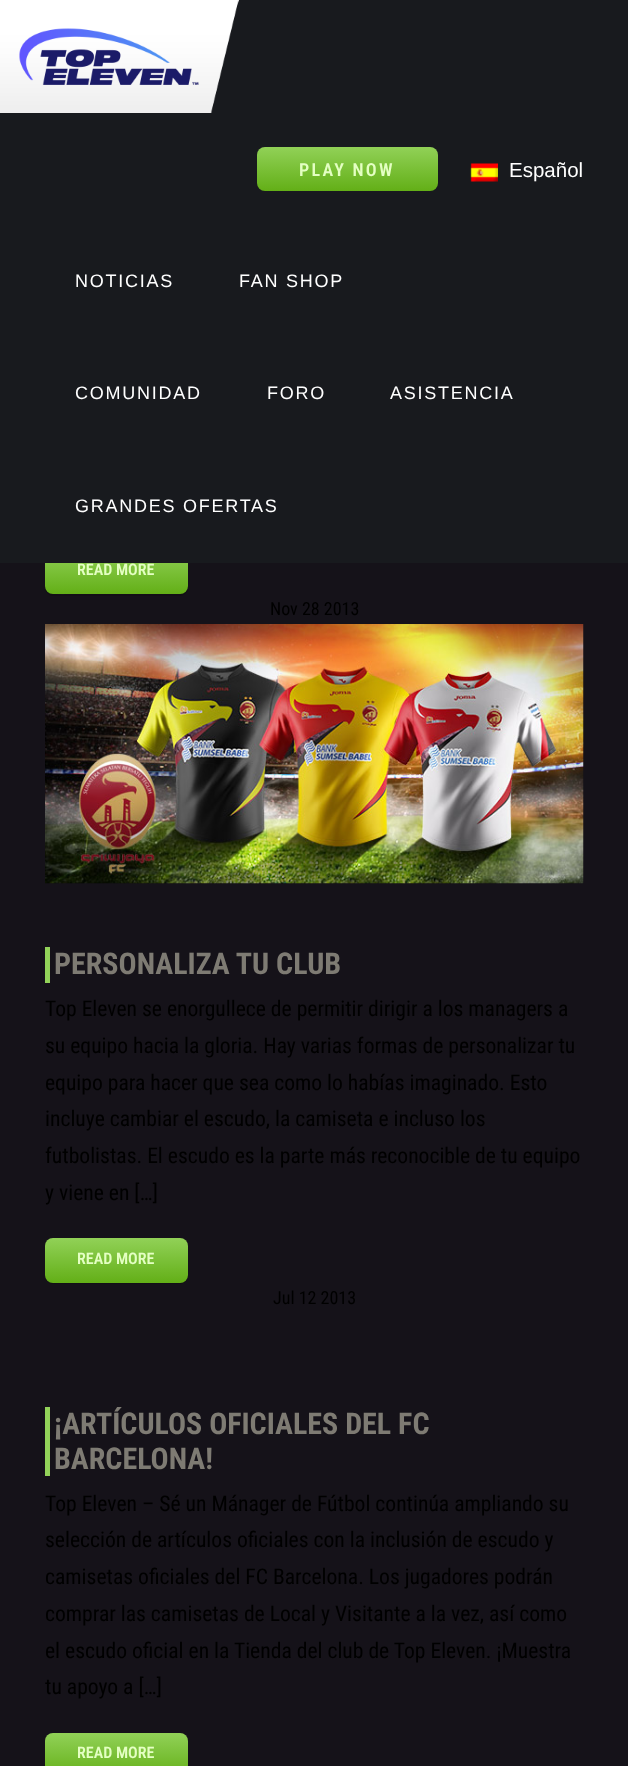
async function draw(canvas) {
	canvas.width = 628;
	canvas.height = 1766;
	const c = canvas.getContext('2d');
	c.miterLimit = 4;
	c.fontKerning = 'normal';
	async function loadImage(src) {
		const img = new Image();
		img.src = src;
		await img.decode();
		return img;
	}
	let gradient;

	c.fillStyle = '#151219';
	c.fillRect(0, 0, 628, 1766);
	c.fillStyle = '#120f15';
	c.beginPath();
	c.moveTo(45, 586);
	c.lineTo(45, 588);
	c.bezierCurveTo(45, 592, 49, 596, 53, 596);
	c.lineTo(180, 596);
	c.bezierCurveTo(184, 596, 188, 592, 188, 588);
	c.lineTo(188, 559);
	c.lineTo(187, 556);
	c.lineTo(188, 582);
	c.bezierCurveTo(188, 587, 188, 594, 180, 594);
	c.lineTo(74, 594);
	c.bezierCurveTo(71, 594, 45, 599, 45, 586);
	c.closePath();
	c.fill();
	gradient = c.createLinearGradient(116, 549, 116, 594);
	gradient.addColorStop(0, '#91d157');
	gradient.addColorStop(1, '#63af17');
	c.fillStyle = gradient;
	c.beginPath();
	c.roundRect(45, 549, 143, 45, 8);
	c.fill();
	c.fillStyle = '#181a1e';
	c.fillRect(0, 0, 628, 563);
	c.drawImage(await loadImage('img1.png'), 0, 0, 239, 113);
	gradient = c.createLinearGradient(347, 147, 347, 191);
	gradient.addColorStop(0, '#91d157');
	gradient.addColorStop(1, '#63af17');
	c.fillStyle = gradient;
	c.beginPath();
	c.roundRect(257, 147, 181, 44, 8);
	c.fill();
	c.letterSpacing = '2.25px';
	c.font = '600 18px Roboto Condensed';
	c.fillStyle = '#e4ffc3';
	c.fillText('PLAY NOW', 299, 176);
	c.drawImage(await loadImage('img2.png'), 470, 163, 28, 19);
	c.letterSpacing = '0px';
	c.font = '20.5px Liberation Sans';
	c.fillStyle = '#fff';
	c.fillText('Español', 509, 177);
	c.letterSpacing = '1.75px';
	c.font = '18px Liberation Sans';
	for (const [text, x, y] of [
		['NOTICIAS', 75, 287],
		['FAN SHOP', 239, 287],
		['COMUNIDAD', 75, 399],
		['FORO', 267, 399],
		['ASISTENCIA', 390, 399],
		['GRANDES OFERTAS', 75, 512],
	]) {
		c.fillText(text, x, y);
	}
	c.letterSpacing = '0px';
	c.font = '600 16px Roboto Condensed';
	c.fillStyle = '#e4ffc3';
	c.fillText('READ MORE', 77, 575);
	c.font = '18px Roboto Condensed';
	c.fillStyle = '#000';
	c.fillText('Nov 28 2013', 270, 615);
	c.drawImage(await loadImage('img3.png'), 45, 624, 539, 260);
	c.fillStyle = '#92d259';
	c.fillRect(45, 947, 5, 36);
	c.font = 'bold 30px Roboto Condensed';
	c.fillStyle = '#7e7b73';
	c.fillText('PERSONALIZA TU CLUB', 54, 974);
	c.font = '21.6px Roboto Condensed';
	c.fillStyle = '#000';
	for (const [text, x, y] of [
		['Top Eleven se enorgullece de permitir dirigir a los managers a', 45, 1016],
		['su equipo hacia la gloria. Hay varias formas de personalizar tu', 45, 1053],
		['equipo para hacer que sea como lo habías imaginado. Esto', 45, 1090],
		['incluye cambiar el escudo, la camiseta e incluso los', 45, 1126],
		['futbolistas. El escudo es la parte más reconocible de tu equipo', 45, 1163],
		['y viene en […]', 45, 1200],
	]) {
		c.fillText(text, x, y);
	}
	c.fillStyle = '#120f15';
	c.beginPath();
	c.moveTo(45, 1275);
	c.lineTo(45, 1276);
	c.bezierCurveTo(45, 1280, 49, 1284, 53, 1284);
	c.lineTo(180, 1284);
	c.bezierCurveTo(184, 1284, 188, 1280, 188, 1276);
	c.lineTo(188, 1247);
	c.lineTo(187, 1244);
	c.lineTo(187, 1277);
	c.bezierCurveTo(185, 1287, 162, 1282, 159, 1282);
	c.lineTo(74, 1282);
	c.bezierCurveTo(71, 1282, 45, 1288, 45, 1275);
	c.closePath();
	c.fill();
	gradient = c.createLinearGradient(116, 1238, 116, 1283);
	gradient.addColorStop(0, '#91d157');
	gradient.addColorStop(1, '#63af17');
	c.fillStyle = gradient;
	c.beginPath();
	c.roundRect(45, 1238, 143, 45, 8);
	c.fill();
	c.font = '600 16px Roboto Condensed';
	c.fillStyle = '#e4ffc3';
	c.fillText('READ MORE', 77, 1264);
	c.font = '18px Roboto Condensed';
	c.fillStyle = '#000';
	c.fillText('Jul 12 2013', 273, 1304);
	c.fillStyle = '#92d259';
	c.fillRect(45, 1407, 5, 69);
	c.font = 'bold 30px Roboto Condensed';
	c.fillStyle = '#7e7b73';
	c.fillText('¡ARTÍCULOS OFICIALES DEL FC', 54, 1434);
	c.fillText('BARCELONA!', 54, 1469);
	c.font = '21.6px Roboto Condensed';
	c.fillStyle = '#000';
	for (const [text, x, y] of [
		['Top Eleven – Sé un Mánager de Fútbol continúa ampliando su', 45, 1511],
		['selección de artículos oficiales con la inclusión de escudo y', 45, 1547],
		['camisetas oficiales del FC Barcelona. Los jugadores podrán', 45, 1584],
		['comprar las camisetas de Local y Visitante a la vez, así como', 45, 1621],
		['el escudo oficial en la Tienda del club de Top Eleven. ¡Muestra', 45, 1658],
		['tu apoyo a […]', 45, 1694],
	]) {
		c.fillText(text, x, y);
	}
	gradient = c.createLinearGradient(116, 1733, 116, 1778);
	gradient.addColorStop(0, '#91d157');
	gradient.addColorStop(1, '#63af17');
	c.fillStyle = gradient;
	c.beginPath();
	c.roundRect(45, 1733, 143, 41, 8);
	c.fill();
	c.font = '600 16px Roboto Condensed';
	c.fillStyle = '#e4ffc3';
	c.fillText('READ MORE', 77, 1758);
}

draw(document.querySelector('canvas'));
